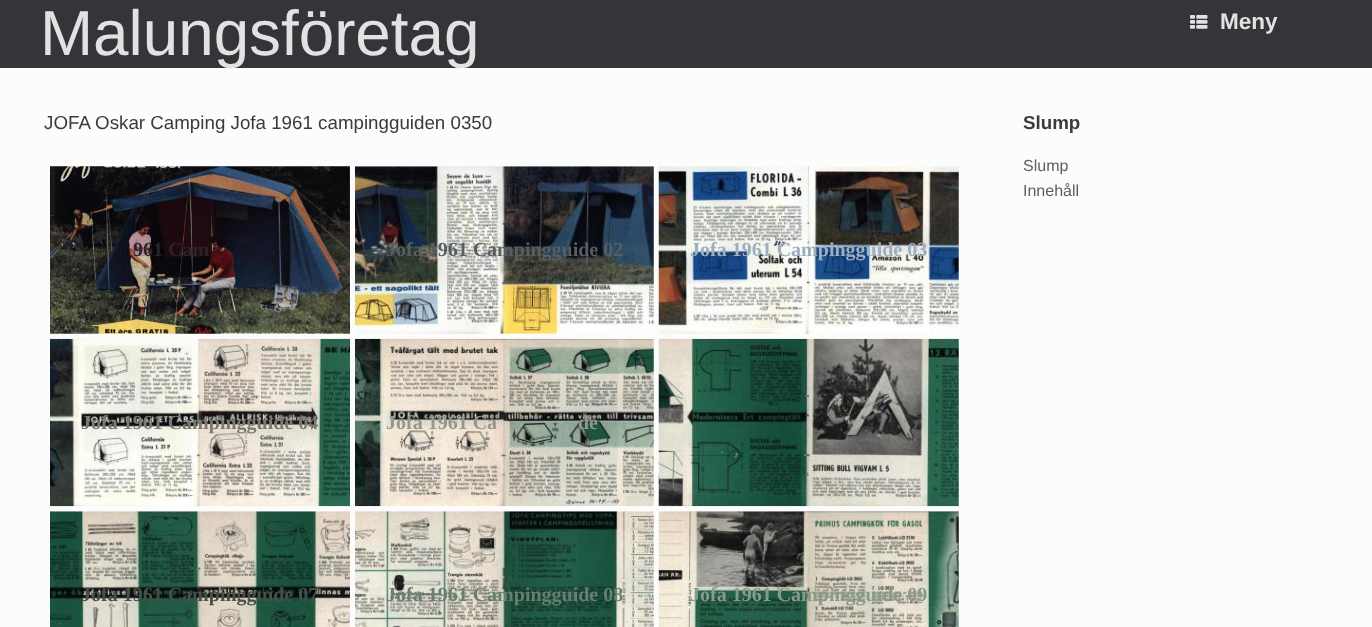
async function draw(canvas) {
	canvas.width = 1372;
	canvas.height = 627;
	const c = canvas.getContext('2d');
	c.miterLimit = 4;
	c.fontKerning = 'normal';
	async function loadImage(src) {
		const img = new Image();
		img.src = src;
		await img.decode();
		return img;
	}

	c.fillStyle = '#fcfcfc';
	c.fillRect(0, 0, 1372, 627);
	c.fillStyle = '#343538';
	c.fillRect(0, 0, 1372, 68);
	c.font = '63.75px Liberation Sans';
	c.fillStyle = '#e2e2e2';
	c.fillText('Malungsföretag', 40, 55);
	c.drawImage(await loadImage('img1.png'), 1190, 15, 18, 14);
	c.font = 'bold 22.5px Liberation Sans';
	c.fillText('Meny', 1220, 29);
	c.font = '18.75px Liberation Sans';
	c.fillStyle = '#3b3b3b';
	c.fillText('JOFA Oskar Camping Jofa 1961 campingguiden 0350', 44, 129);
	c.drawImage(await loadImage('img2.png'), 50, 166, 300, 168);
	c.font = 'bold 20px Liberation Serif';
	c.fillStyle = '#2b232b';
	c.fillText('961 Cam', 133, 256);
	c.drawImage(await loadImage('img3.png'), 355, 166, 299, 168);
	c.fillStyle = '#585f62';
	c.fillText('Jofa 1961 Campingguide 02', 386, 256);
	c.drawImage(await loadImage('img4.png'), 658, 166, 301, 168);
	c.fillStyle = '#9eaebe';
	c.fillText('Jofa 1961 Campingguide 03', 690, 256);
	c.drawImage(await loadImage('img5.png'), 50, 338, 300, 169);
	c.fillStyle = '#7a7974';
	c.fillText('Jofa 1961 Campingguide 04', 81, 429);
	c.drawImage(await loadImage('img6.png'), 355, 338, 299, 169);
	c.fillStyle = '#92988c';
	c.fillText('Jofa 1961 Ca', 386, 429);
	c.fillText('de', 578, 429);
	c.drawImage(await loadImage('img7.png'), 658, 338, 301, 169);
	c.drawImage(await loadImage('img8.png'), 50, 511, 300, 116);
	c.fillStyle = '#455049';
	c.fillText('Jofa 1961 Campingguide 07', 81, 601);
	c.drawImage(await loadImage('img9.png'), 355, 511, 299, 116);
	c.fillStyle = '#678071';
	c.fillText('Jofa 1961 Campingguide 08', 386, 601);
	c.drawImage(await loadImage('img10.png'), 658, 511, 301, 116);
	c.fillStyle = '#889b8a';
	c.fillText('Jofa 1961 Campingguide 09', 690, 601);
	c.font = 'bold 18.75px Liberation Sans';
	c.fillStyle = '#3b3b3b';
	c.fillText('Slump', 1023, 129);
	c.font = '16px Liberation Sans';
	c.fillStyle = '#5e5e5e';
	c.fillText('Slump', 1023, 171);
	c.fillText('Innehåll', 1023, 196);
}

draw(document.querySelector('canvas'));
